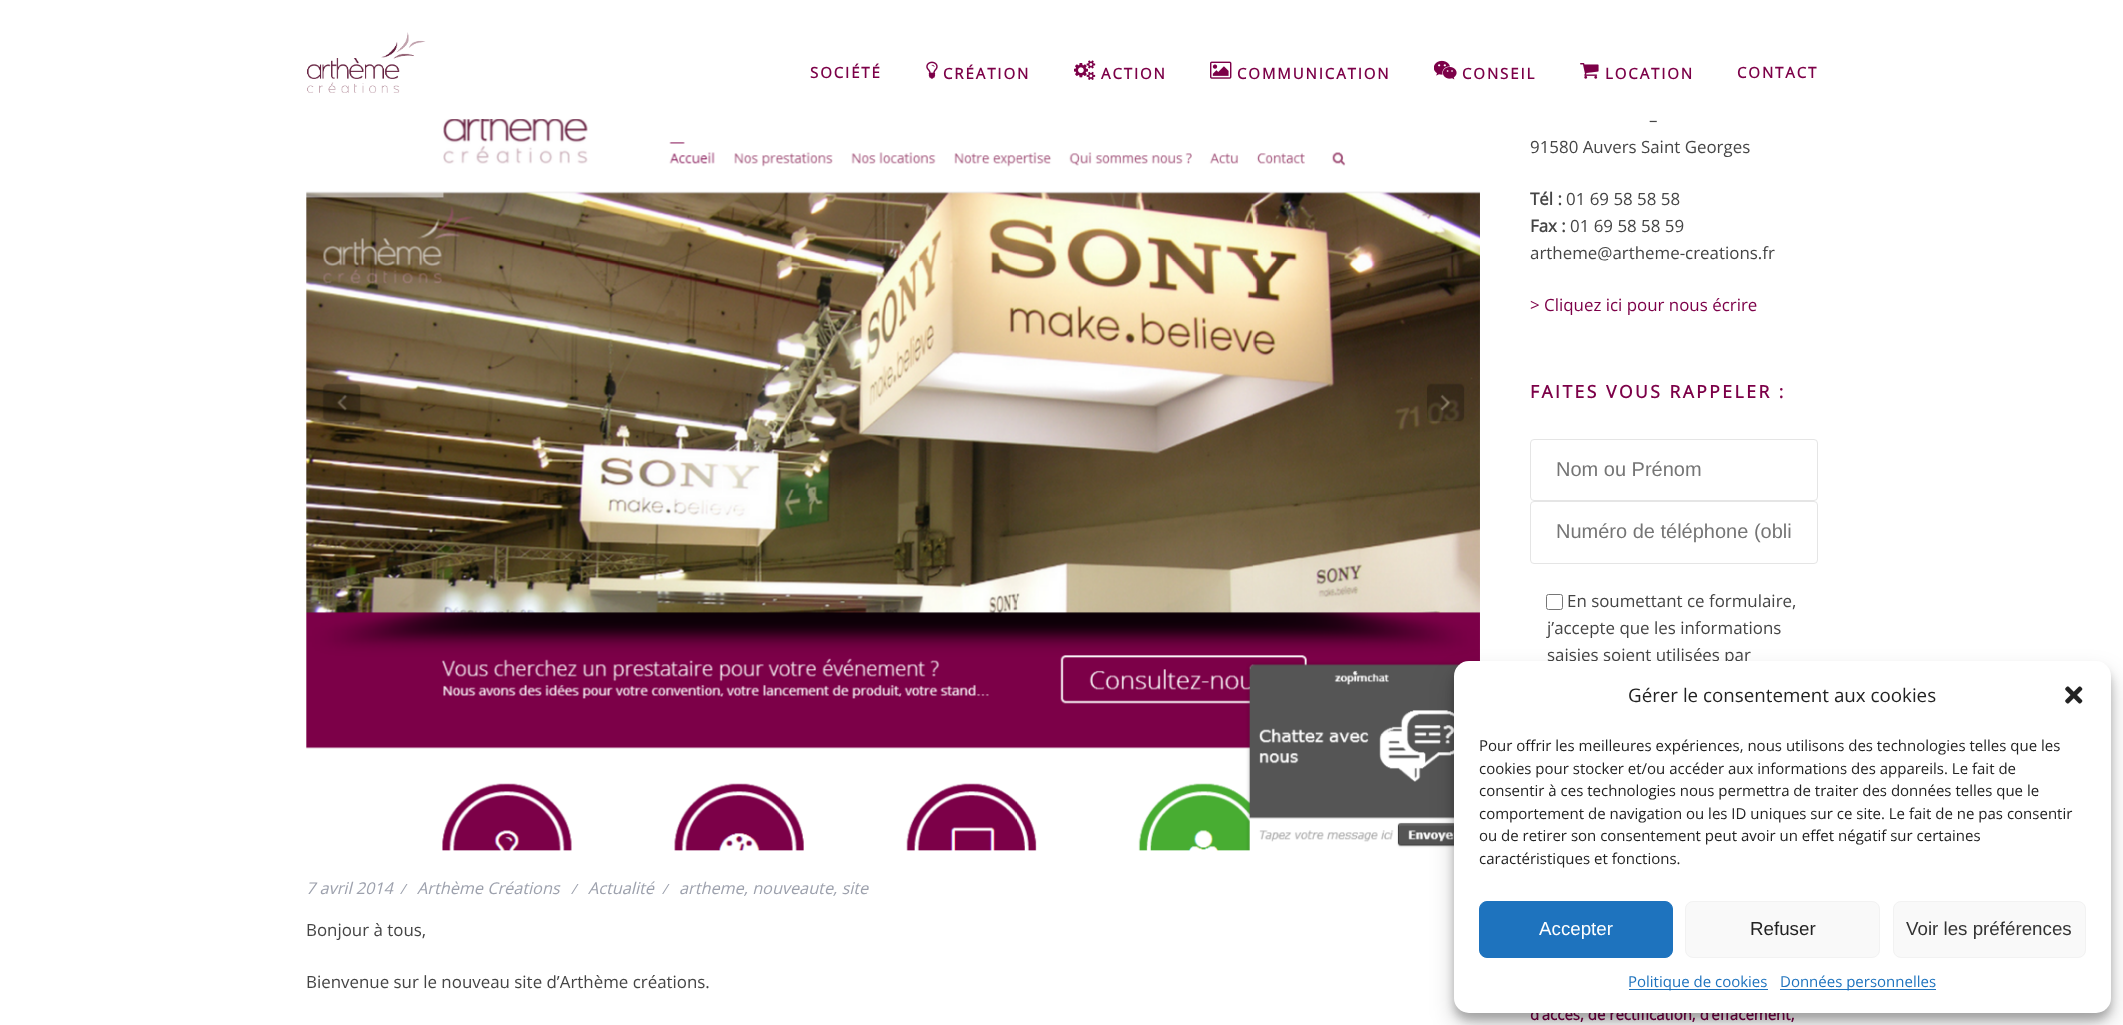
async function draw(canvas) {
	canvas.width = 2123;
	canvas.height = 1025;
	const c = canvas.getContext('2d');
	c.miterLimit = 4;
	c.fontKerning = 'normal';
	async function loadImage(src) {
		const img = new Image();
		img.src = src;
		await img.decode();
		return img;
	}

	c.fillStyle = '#fff';
	c.fillRect(0, 0, 2123, 1025);
	c.drawImage(await loadImage('img1.png'), 307, 32, 119, 61);
	c.letterSpacing = '1.9px';
	c.font = 'bold 15px Open Sans';
	c.fillStyle = '#7c0048';
	c.fillText('SOCIÉTÉ', 810, 78);
	c.drawImage(await loadImage('img2.png'), 926, 61, 12, 18);
	c.fillText('CRÉATION', 943, 79);
	c.drawImage(await loadImage('img3.png'), 1074, 60, 22, 20);
	c.fillText('ACTION', 1101, 79);
	c.drawImage(await loadImage('img4.png'), 1210, 61, 22, 18);
	c.fillText('COMMUNICATION', 1237, 79);
	c.drawImage(await loadImage('img5.png'), 1434, 60, 23, 20);
	c.fillText('CONSEIL', 1462, 79);
	c.drawImage(await loadImage('img6.png'), 1580, 63, 19, 16);
	c.fillText('LOCATION', 1605, 79);
	c.fillText('CONTACT', 1737, 78);
	c.drawImage(await loadImage('img7.png'), 306, 119, 1174, 732);
	c.letterSpacing = '0px';
	c.font = 'italic 16.25px Open Sans';
	c.fillStyle = '#9da1ad';
	c.fillText('7 avril 2014', 306, 894);
	c.font = 'italic 14px Open Sans';
	c.fillText('/', 400, 894);
	c.font = 'italic 16.25px Open Sans';
	c.fillText('Arthème Créations', 417, 894);
	c.font = 'italic 14px Open Sans';
	c.fillText('/', 571, 894);
	c.font = 'italic 16.25px Open Sans';
	c.fillText('Actualité', 588, 894);
	c.font = 'italic 14px Open Sans';
	c.fillText('/', 662, 894);
	c.font = 'italic 16.25px Open Sans';
	c.fillText('artheme, nouveaute, site', 679, 894);
	c.font = '16.9px Open Sans';
	c.fillStyle = '#454545';
	for (const [text, x, y] of [
		['Bonjour à tous,', 306, 936],
		['Bienvenue sur le nouveau site d’Arthème créations.', 306, 988],
		['–', 1649, 126],
		['91580 Auvers Saint Georges', 1530, 153],
	]) {
		c.fillText(text, x, y);
	}
	c.font = 'bold 16.9px Open Sans';
	c.fillText('Tél :', 1530, 205);
	c.font = '16.9px Open Sans';
	c.fillText('01 69 58 58 58', 1566, 205);
	c.font = 'bold 16.9px Open Sans';
	c.fillText('Fax :', 1530, 232);
	c.font = '16.9px Open Sans';
	c.fillText('01 69 58 58 59', 1570, 232);
	c.fillText('artheme@artheme-creations.fr', 1530, 259);
	c.fillStyle = '#7c0048';
	c.fillText('> Cliquez ici pour nous écrire', 1530, 311);
	c.letterSpacing = '2.5px';
	c.font = 'bold 17.5px Open Sans';
	c.fillText('FAITES VOUS RAPPELER :', 1530, 398);
	c.beginPath();
	c.roundRect(1530.5, 439.5, 287, 61, 3.5);
	c.strokeStyle = '#e5e5e5';
	c.stroke();
	c.letterSpacing = '0px';
	c.font = '20px Liberation Sans';
	c.fillStyle = '#757575';
	c.fillText('Nom ou Prénom', 1556, 476);
	c.beginPath();
	c.roundRect(1530.5, 501.5, 287, 62, 3.5);
	c.stroke();
	c.fillText('Numéro de téléphone (obli', 1556, 538);
	c.beginPath();
	c.roundRect(1546.5, 594.5, 16, 15, 2);
	c.strokeStyle = '#767676';
	c.stroke();
	c.font = '16.9px Open Sans';
	c.fillStyle = '#454545';
	for (const [text, x, y] of [
		['En soumettant ce formulaire,', 1567, 607],
		['j’accepte que les informations', 1547, 634],
		['saisies soient utilisées par', 1547, 661],
	]) {
		c.fillText(text, x, y);
	}
	c.font = 'bold 15px Open Sans';
	c.fillStyle = '#7c0048';
	c.fillText('d’accès, de rectification, d’effacement,', 1530, 1020);
	c.fillStyle = '#0000003b';
	c.filter = 'blur(4px)';
	c.beginPath();
	c.roundRect(1454, 669, 657, 351, 15);
	c.fill();
	c.filter = 'none';
	c.fillStyle = '#00000030';
	c.filter = 'blur(12.5px)';
	c.beginPath();
	c.roundRect(1454, 674, 657, 351, 15);
	c.fill();
	c.filter = 'none';
	c.fillStyle = '#fff';
	c.beginPath();
	c.roundRect(1454, 661, 657, 352, 15);
	c.fill();
	c.font = '18.75px Open Sans';
	c.fillStyle = '#222';
	c.fillText('Gérer le consentement aux cookies', 1628, 702);
	c.drawImage(await loadImage('img8.png'), 2065, 686, 18, 18);
	c.font = '15px Open Sans';
	for (const [text, x, y] of [
		['Pour offrir les meilleures expériences, nous utilisons des technologies telles que les', 1479, 751],
		['cookies pour stocker et/ou accéder aux informations des appareils. Le fait de', 1479, 774],
		['consentir à ces technologies nous permettra de traiter des données telles que le', 1479, 796],
		['comportement de navigation ou les ID uniques sur ce site. Le fait de ne pas consentir', 1479, 819],
		['ou de retirer son consentement peut avoir un effet négatif sur certaines', 1479, 841],
		['caractéristiques et fonctions.', 1479, 864],
	]) {
		c.fillText(text, x, y);
	}
	c.fillStyle = '#1e73be';
	c.beginPath();
	c.roundRect(1479.5, 901.5, 193, 56, 7.5);
	c.fill();
	c.strokeStyle = '#1e73be';
	c.stroke();
	c.font = '18.75px Liberation Sans';
	c.fillStyle = '#fff';
	c.fillText('Accepter', 1539, 935);
	c.fillStyle = '#f9f9f9';
	c.beginPath();
	c.roundRect(1685.5, 901.5, 194, 56, 7.5);
	c.fill();
	c.strokeStyle = '#f2f2f2';
	c.stroke();
	c.fillStyle = '#222';
	c.fillText('Refuser', 1750, 935);
	c.fillStyle = '#f9f9f9';
	c.beginPath();
	c.roundRect(1893.5, 901.5, 192, 56, 7.5);
	c.fill();
	c.stroke();
	c.fillStyle = '#333';
	c.fillText('Voir les préférences', 1906, 935);
	c.fillStyle = '#1e73be';
	c.fillRect(1629, 989, 139, 1);
	c.font = '15px Open Sans';
	c.fillText('Politique de cookies', 1628, 987);
	c.fillRect(1780, 989, 156, 1);
	c.fillText('Données personnelles', 1780, 987);
}

draw(document.querySelector('canvas'));
